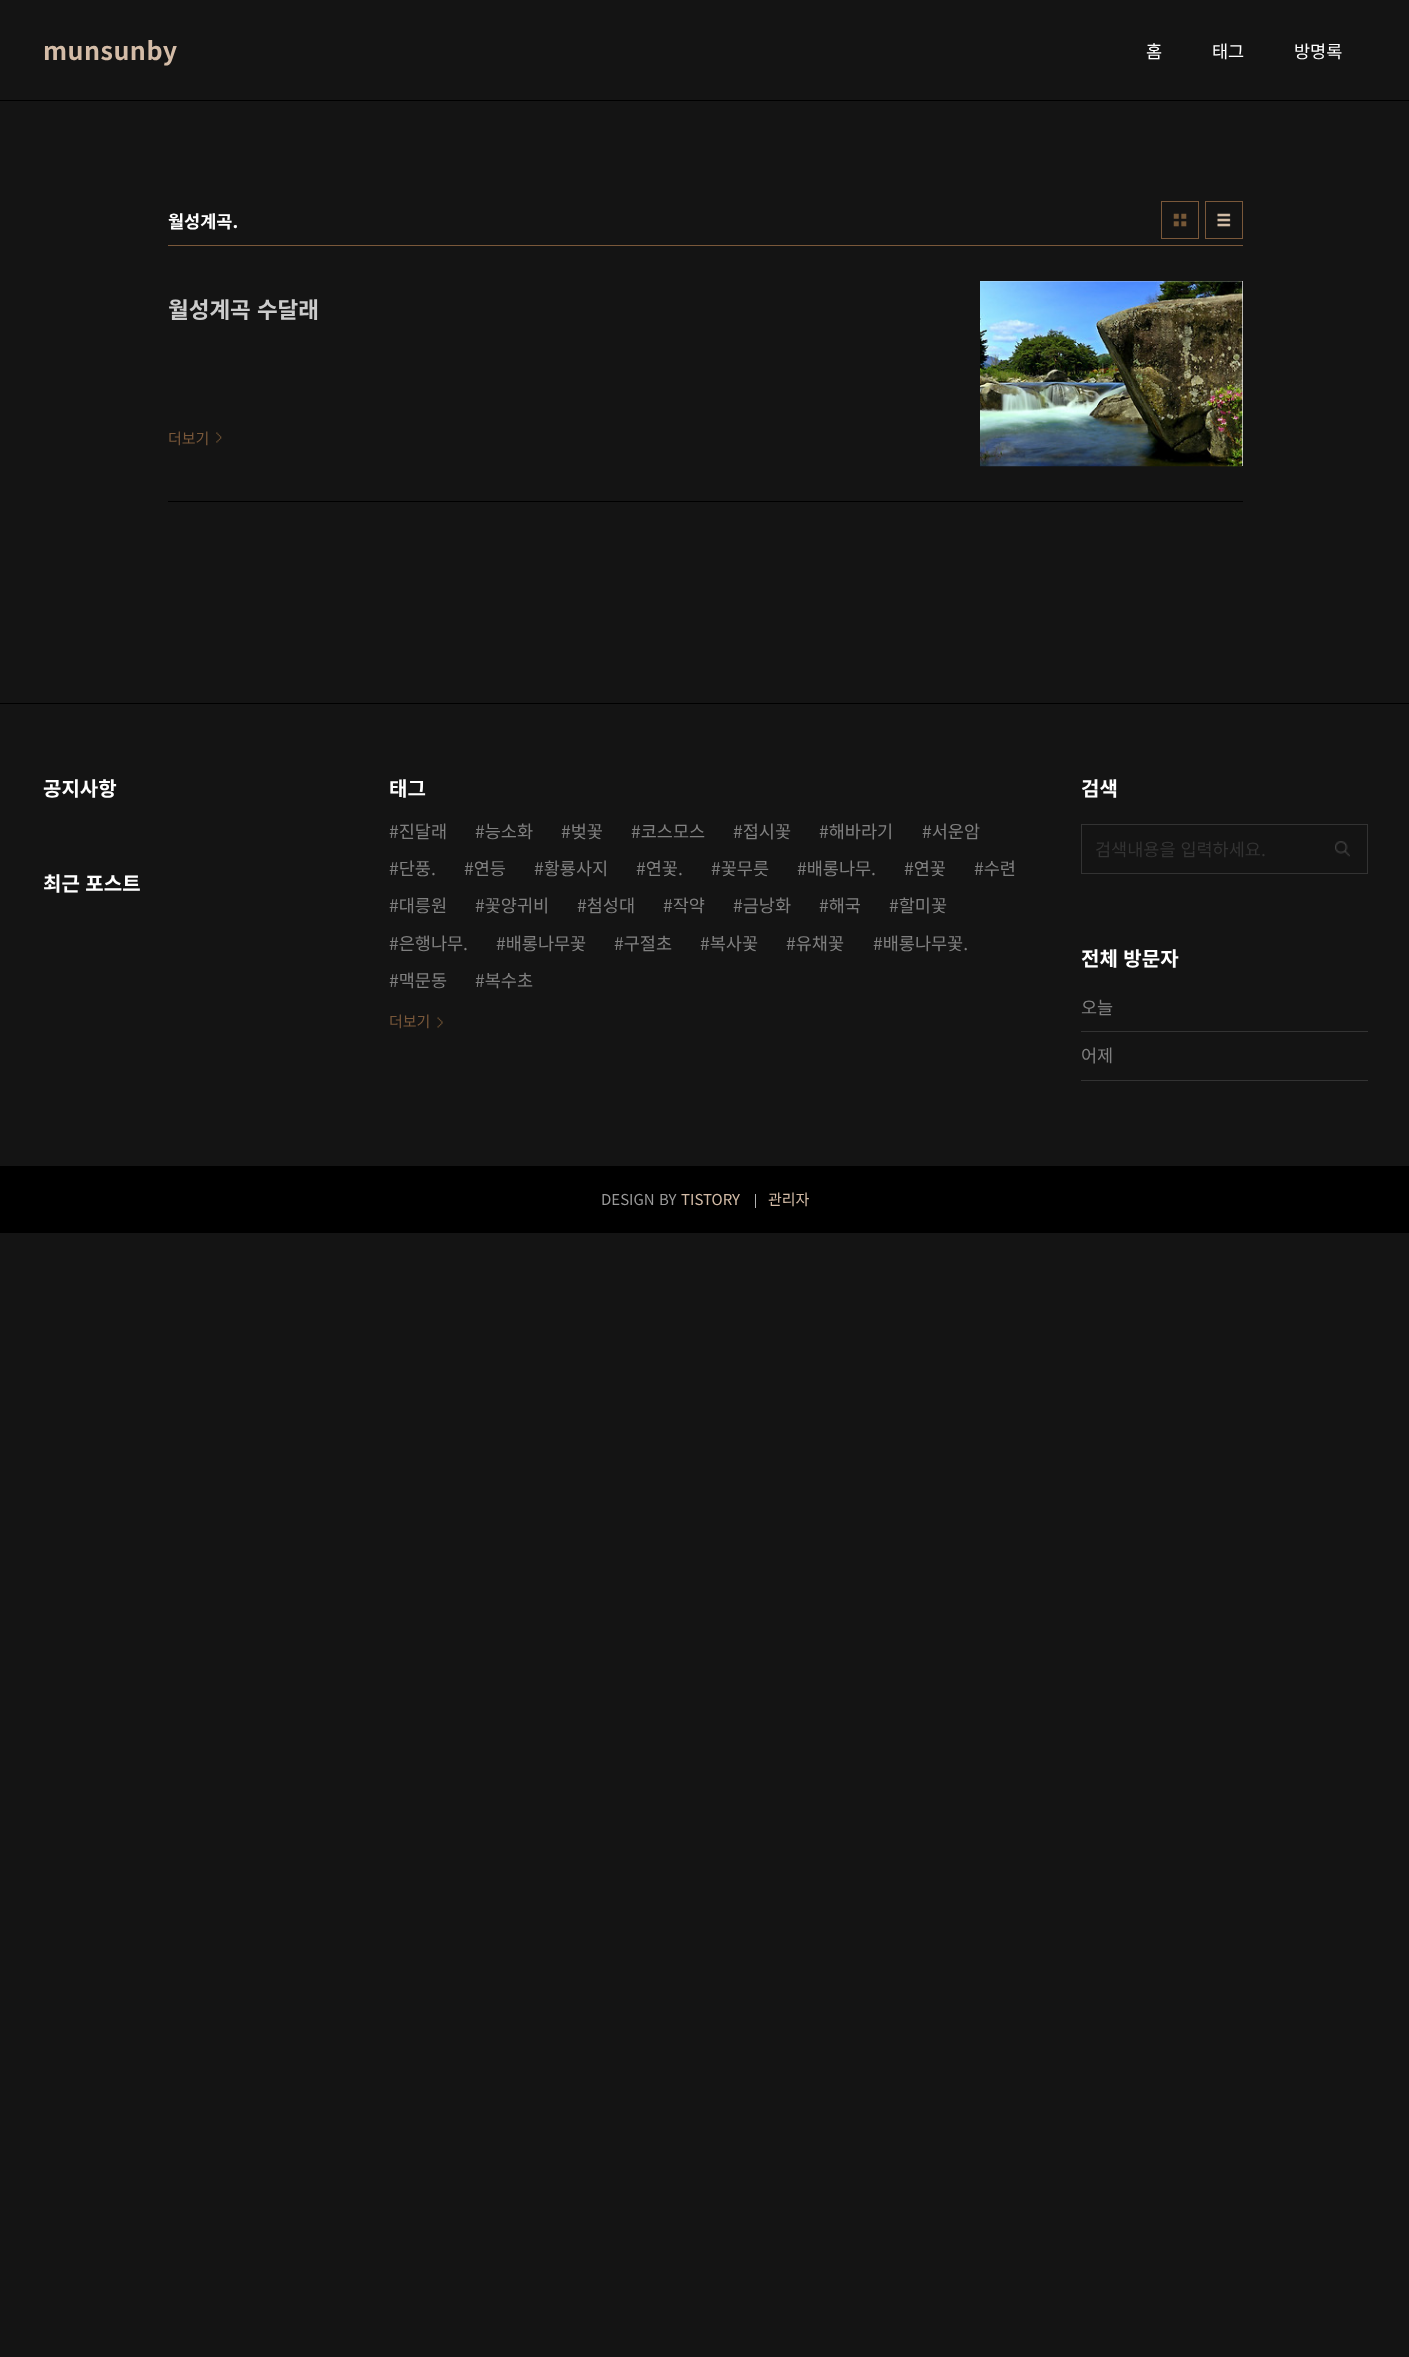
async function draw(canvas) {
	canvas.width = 1409;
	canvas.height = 2357;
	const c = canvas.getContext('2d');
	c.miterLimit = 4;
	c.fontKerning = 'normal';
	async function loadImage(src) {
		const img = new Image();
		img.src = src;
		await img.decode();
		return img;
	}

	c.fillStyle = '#141414';
	c.fillRect(0, 0, 1409, 2357);
	c.fillStyle = '#000';
	c.fillRect(0, 100, 1409, 1);
	c.letterSpacing = '0.5px';
	c.font = 'bold 25px Noto Sans KR';
	c.fillStyle = '#d4bca7';
	c.fillText('munsunby', 43, 60);
	c.letterSpacing = '0px';
	c.font = '17.5px Noto Sans KR';
	c.fillStyle = '#fff';
	for (const [text, x, y] of [
		['홈', 1146, 58],
		['태그', 1212, 58],
		['방명록', 1294, 58],
	]) {
		c.fillText(text, x, y);
	}
	c.fillStyle = '#7a583a';
	c.fillRect(168, 245, 1075, 1);
	c.font = 'bold 17.5px Noto Sans KR';
	c.fillStyle = '#fff';
	c.fillText('월성계곡.', 168, 228);
	c.drawImage(await loadImage('img1.png'), 1173, 213, 14, 14);
	c.strokeStyle = '#7a583a';
	c.strokeRect(1161.5, 201.5, 37, 37);
	c.drawImage(await loadImage('img2.png'), 1217, 213, 14, 14);
	c.strokeRect(1205.5, 201.5, 37, 37);
	c.fillStyle = '#000';
	c.fillRect(168, 501, 1075, 1);
	c.wordSpacing = '1px';
	c.font = 'bold 22.5px Noto Sans KR';
	c.fillStyle = '#ccc';
	c.fillText('월성계곡 수달래', 168, 318);
	c.fillStyle = '#ebebeb';
	c.fillRect(980, 281, 263, 185);
	c.drawImage(await loadImage('img3.png'), 980, 281, 263, 186);
	c.wordSpacing = '0px';
	c.font = '15px Noto Sans KR';
	c.fillStyle = '#7a583a';
	c.fillText('더보기', 168, 444);
	c.drawImage(await loadImage('img4.png'), 216, 432, 6, 11);
	c.fillStyle = '#000';
	c.fillRect(0, 703, 1409, 1);
	c.font = 'bold 20px Noto Sans KR';
	c.fillStyle = '#fff';
	c.fillText('공지사항', 43, 796);
	c.wordSpacing = '1px';
	c.fillText('최근 포스트', 43, 891);
	c.wordSpacing = '0px';
	c.fillText('태그', 389, 796);
	c.font = '17.5px Noto Sans KR';
	c.fillStyle = '#808080';
	for (const [text, x, y] of [
		['#진달래', 389, 838],
		['#능소화', 475, 838],
		['#벚꽃', 561, 838],
		['#코스모스', 631, 838],
		['#접시꽃', 733, 838],
		['#해바라기', 819, 838],
		['#서운암', 922, 838],
		['#단풍.', 389, 875],
		['#연등', 464, 875],
		['#황룡사지', 534, 875],
		['#연꽃.', 636, 875],
		['#꽃무릇', 711, 875],
		['#배롱나무.', 797, 875],
		['#연꽃', 904, 875],
		['#수련', 974, 875],
		['#대릉원', 389, 912],
		['#꽃양귀비', 475, 912],
		['#첨성대', 577, 912],
		['#작약', 663, 912],
		['#금낭화', 733, 912],
		['#해국', 819, 912],
		['#할미꽃', 889, 912],
		['#은행나무.', 389, 950],
		['#배롱나무꽃', 496, 950],
		['#구절초', 614, 950],
		['#복사꽃', 700, 950],
		['#유채꽃', 786, 950],
		['#배롱나무꽃.', 873, 950],
		['#맥문동', 389, 987],
		['#복수초', 475, 987],
	]) {
		c.fillText(text, x, y);
	}
	c.font = '15px Noto Sans KR';
	c.fillStyle = '#7a583a';
	c.fillText('더보기', 389, 1027);
	c.drawImage(await loadImage('img5.png'), 437, 1017, 6, 11);
	c.font = 'bold 20px Noto Sans KR';
	c.fillStyle = '#fff';
	c.fillText('검색', 1081, 796);
	c.strokeStyle = '#333';
	c.strokeRect(1081.5, 824.5, 286, 49);
	c.wordSpacing = '1px';
	c.font = '17.5px Noto Sans KR';
	c.fillStyle = '#333';
	c.fillText('검색내용을 입력하세요.', 1095, 856);
	c.drawImage(await loadImage('img6.png'), 1335, 841, 15, 16);
	c.font = 'bold 20px Noto Sans KR';
	c.fillStyle = '#fff';
	c.fillText('전체 방문자', 1081, 966);
	c.fillStyle = '#333';
	c.fillRect(1081, 1031, 287, 1);
	c.wordSpacing = '0px';
	c.font = '17.5px Noto Sans KR';
	c.fillStyle = '#808080';
	c.fillText('오늘', 1081, 1014);
	c.fillStyle = '#333';
	c.fillRect(1081, 1080, 287, 1);
	c.fillStyle = '#808080';
	c.fillText('어제', 1081, 1062);
	c.fillStyle = '#000';
	c.fillRect(0, 1166, 1409, 67);
	c.wordSpacing = '1px';
	c.font = '15px Noto Sans KR';
	c.fillStyle = '#999';
	c.fillText('DESIGN BY', 601, 1205);
	c.wordSpacing = '0px';
	c.fillStyle = '#d4bca7';
	c.fillText('TISTORY', 681, 1205);
	c.fillStyle = '#b2b2b2';
	c.fillRect(755, 1194, 1, 14);
	c.fillStyle = '#d4bca7';
	c.fillText('관리자', 768, 1205);
}

draw(document.querySelector('canvas'));
